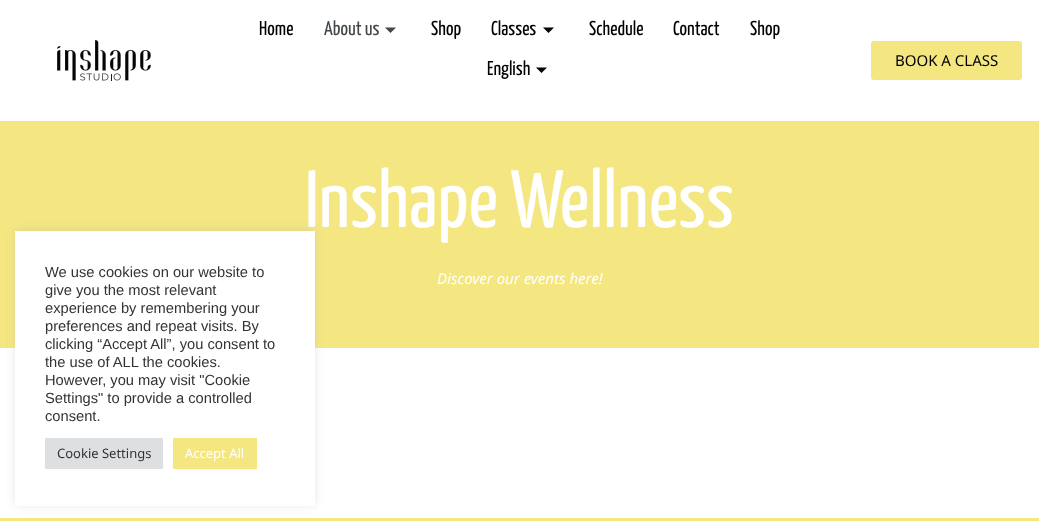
async function draw(canvas) {
	canvas.width = 1039;
	canvas.height = 521;
	const c = canvas.getContext('2d');
	c.miterLimit = 4;
	c.fontKerning = 'normal';
	async function loadImage(src) {
		const img = new Image();
		img.src = src;
		await img.decode();
		return img;
	}

	c.fillStyle = '#fff';
	c.fillRect(0, 0, 1039, 521);
	c.drawImage(await loadImage('img1.png'), 57, 40, 94, 41);
	c.font = '20px Yanone Kaffeesatz';
	c.fillStyle = '#000';
	c.fillText('Home', 259, 35);
	c.fillStyle = '#41474b';
	c.fillText('About us', 324, 35);
	c.beginPath();
	c.moveTo(385, 27.5);
	c.lineTo(396, 27.5);
	c.lineTo(390.5, 33);
	c.closePath();
	c.fill();
	c.fillStyle = '#000';
	c.fillText('Shop', 431, 35);
	c.fillText('Classes', 491, 35);
	c.beginPath();
	c.moveTo(543, 27.5);
	c.lineTo(554, 27.5);
	c.lineTo(548.5, 33);
	c.closePath();
	c.fill();
	for (const [text, x, y] of [
		['Schedule', 589, 35],
		['Contact', 673, 35],
		['Shop', 750, 35],
		['English', 487, 75],
	]) {
		c.fillText(text, x, y);
	}
	c.beginPath();
	c.moveTo(536, 67.5);
	c.lineTo(547, 67.5);
	c.lineTo(541.5, 73);
	c.closePath();
	c.fill();
	c.fillStyle = '#f4e782';
	c.beginPath();
	c.roundRect(871, 41, 151, 39, 3);
	c.fill();
	c.font = '15px Noto Sans';
	c.fillStyle = '#000';
	c.fillText('BOOK A CLASS', 895, 66);
	c.fillStyle = '#f4e782';
	c.fillRect(0, 121, 1039, 227);
	c.font = '81px Yanone Kaffeesatz';
	c.fillStyle = '#fff';
	c.fillText('Inshape Wellness', 305, 227);
	c.font = 'italic 15px Noto Sans';
	c.fillText('Discover our events here!', 437, 284);
	c.fillStyle = '#f4e782';
	c.fillRect(0, 518, 1039, 3);
	c.fillStyle = '#acabab4d';
	c.filter = 'blur(5px)';
	c.beginPath();
	c.rect(15, 230, 300, 275);
	c.fill();
	c.filter = 'none';
	c.fillStyle = '#fff';
	c.fillRect(15, 231, 300, 275);
	c.font = '14.7px Liberation Sans';
	c.fillStyle = '#333';
	for (const [text, x, y] of [
		['We use cookies on our website to', 45, 277],
		['give you the most relevant', 45, 295],
		['experience by remembering your', 45, 313],
		['preferences and repeat visits. By', 45, 331],
		['clicking “Accept All”, you consent to', 45, 349],
		['the use of ALL the cookies.', 45, 367],
		['However, you may visit "Cookie', 45, 385],
		['Settings" to provide a controlled', 45, 403],
		['consent.', 45, 421],
	]) {
		c.fillText(text, x, y);
	}
	c.fillStyle = '#dedfe0';
	c.fillRect(45, 438, 118, 31);
	c.font = '13px Noto Sans';
	c.fillStyle = '#333';
	c.fillText('Cookie Settings', 57, 458);
	c.fillStyle = '#f4e782';
	c.fillRect(173, 438, 84, 31);
	c.fillStyle = '#fff';
	c.fillText('Accept All', 185, 458);
}

draw(document.querySelector('canvas'));
